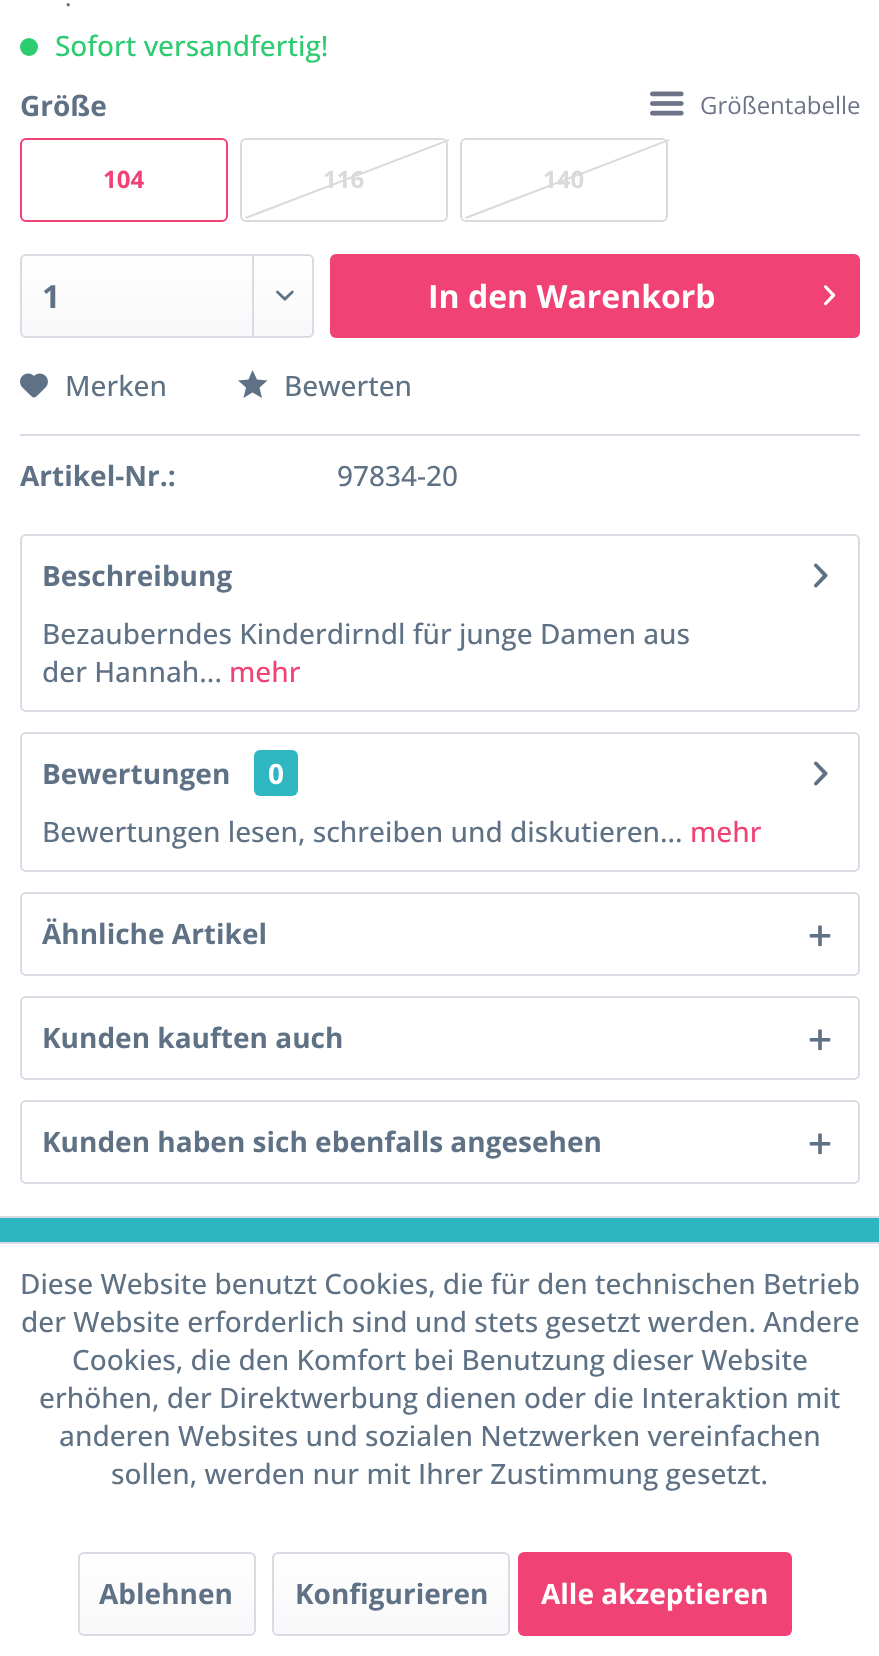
async function draw(canvas) {
	canvas.width = 879;
	canvas.height = 1656;
	const c = canvas.getContext('2d');
	c.miterLimit = 4;
	c.fontKerning = 'normal';
	async function loadImage(src) {
		const img = new Image();
		img.src = src;
		await img.decode();
		return img;
	}
	let gradient;

	c.fillStyle = '#fff';
	c.fillRect(0, 0, 879, 1656);
	c.font = '500 24px Open Sans';
	c.fillStyle = '#5f7285';
	c.fillText('.', 65, 6);
	c.fillStyle = '#2ecc71';
	c.beginPath();
	c.arc(29, 47, 9, 0, 2 * Math.PI);
	c.fill();
	c.font = '500 28px Open Sans';
	c.fillText('Sofort versandfertig!', 55, 56);
	c.font = 'bold 28px Open Sans';
	c.fillStyle = '#5f7285';
	c.fillText('Größe', 20, 116);
	c.drawImage(await loadImage('img1.png'), 650, 91, 34, 25);
	c.font = '24px Open Sans';
	c.fillStyle = '#6d7487';
	c.fillText('Größentabelle', 700, 114);
	c.beginPath();
	c.roundRect(21, 139, 206, 82, 5);
	c.strokeStyle = '#f04275';
	c.lineWidth = 2;
	c.stroke();
	c.font = 'bold 24px Open Sans';
	c.fillStyle = '#f04275';
	c.fillText('104', 103, 188);
	c.beginPath();
	c.roundRect(241, 139, 206, 82, 5);
	c.strokeStyle = '#dadada';
	c.stroke();
	c.fillStyle = '#dadada';
	c.beginPath();
	c.moveTo(449, 141);
	c.lineTo(246, 219);
	c.lineTo(245, 217);
	c.lineTo(449, 139);
	c.closePath();
	c.fill();
	c.fillText('116', 323, 188);
	c.beginPath();
	c.roundRect(461, 139, 206, 82, 5);
	c.stroke();
	c.beginPath();
	c.moveTo(669, 141);
	c.lineTo(466, 219);
	c.lineTo(465, 217);
	c.lineTo(669, 139);
	c.closePath();
	c.fill();
	c.fillText('140', 543, 188);
	gradient = c.createLinearGradient(167, 256, 167, 336);
	gradient.addColorStop(0, '#fff');
	gradient.addColorStop(1, '#f8f8fa');
	c.fillStyle = gradient;
	c.beginPath();
	c.roundRect(22, 256, 290, 80, 4);
	c.fill();
	c.beginPath();
	c.roundRect(21, 255, 292, 82, 5);
	c.strokeStyle = '#dadae5';
	c.stroke();
	c.font = 'bold 32px Open Sans';
	c.fillStyle = '#5f7285';
	c.fillText('1', 42, 308);
	c.fillStyle = '#dadae5';
	c.fillRect(252, 256, 2, 80);
	c.drawImage(await loadImage('img2.png'), 276, 290, 18, 11);
	c.fillStyle = '#f04275';
	c.beginPath();
	c.roundRect(330, 254, 530, 84, 6);
	c.fill();
	c.fillStyle = '#fff';
	c.fillText('In den Warenkorb', 428, 308);
	c.drawImage(await loadImage('img3.png'), 824, 285, 12, 21);
	c.fillStyle = '#dadae5';
	c.fillRect(20, 434, 840, 2);
	c.drawImage(await loadImage('img4.png'), 20, 373, 28, 25);
	c.font = '500 28px Open Sans';
	c.fillStyle = '#5f7285';
	c.fillText('Merken', 65, 396);
	c.fillText('Bewerten', 284, 396);
	c.beginPath();
	c.moveTo(252.5, 370);
	c.lineTo(248.5, 379.5);
	c.lineTo(238, 380.5);
	c.lineTo(246, 387.5);
	c.lineTo(243.5, 398);
	c.lineTo(252.5, 392.5);
	c.lineTo(262, 398);
	c.lineTo(259.5, 387.5);
	c.lineTo(267.5, 380.5);
	c.lineTo(257, 379.5);
	c.closePath();
	c.fill();
	c.font = 'bold 28px Open Sans';
	c.fillText('Artikel-Nr.:', 20, 486);
	c.font = '500 28px Open Sans';
	c.fillText('97834-20', 337, 486);
	c.beginPath();
	c.roundRect(21, 535, 838, 176, 5);
	c.stroke();
	c.font = 'bold 28px Open Sans';
	c.fillText('Beschreibung', 42, 586);
	c.drawImage(await loadImage('img5.png'), 814, 563, 14, 25);
	c.font = '500 28px Open Sans';
	c.fillText('Bezauberndes Kinderdirndl für junge Damen aus', 42, 644);
	c.fillText('der Hannah...', 42, 682);
	c.fillStyle = '#f04275';
	c.fillText('mehr', 229, 682);
	c.beginPath();
	c.roundRect(21, 733, 838, 138, 5);
	c.stroke();
	c.font = 'bold 28px Open Sans';
	c.fillStyle = '#5f7285';
	c.fillText('Bewertungen', 42, 784);
	c.drawImage(await loadImage('img5.png'), 814, 761, 14, 25);
	c.fillStyle = '#2eb6c1';
	c.beginPath();
	c.roundRect(254, 750, 44, 46, 6);
	c.fill();
	c.fillStyle = '#fff';
	c.fillText('0', 268, 784);
	c.font = '500 28px Open Sans';
	c.fillStyle = '#5f7285';
	c.fillText('Bewertungen lesen, schreiben und diskutieren...', 42, 842);
	c.fillStyle = '#f04275';
	c.fillText('mehr', 690, 842);
	c.beginPath();
	c.roundRect(21, 893, 838, 82, 5);
	c.stroke();
	c.font = 'bold 28px Open Sans';
	c.fillStyle = '#5f7285';
	c.fillText('Ähnliche Artikel', 42, 944);
	c.drawImage(await loadImage('img6.png'), 809, 925, 22, 22);
	c.beginPath();
	c.roundRect(21, 997, 838, 82, 5);
	c.stroke();
	c.fillText('Kunden kauften auch', 42, 1048);
	c.drawImage(await loadImage('img6.png'), 809, 1029, 22, 22);
	c.beginPath();
	c.roundRect(21, 1101, 838, 82, 5);
	c.stroke();
	c.fillText('Kunden haben sich ebenfalls angesehen', 42, 1152);
	c.drawImage(await loadImage('img6.png'), 809, 1133, 22, 22);
	for (const [x, y, w, h, color] of [
		[0, 1218, 879, 24, '#2db5c1'],
		[0, 1216, 879, 2, '#dadae5'],
		[0, 1242, 879, 2, '#dadae5'],
	]) {
		c.fillStyle = color;
		c.fillRect(x, y, w, h);
	}
	c.font = '500 28px Open Sans';
	c.fillStyle = '#5f7285';
	for (const [text, x, y] of [
		['Diese Website benutzt Cookies, die für den technischen Betrieb', 20, 1294],
		['der Website erforderlich sind und stets gesetzt werden. Andere', 21, 1332],
		['Cookies, die den Komfort bei Benutzung dieser Website', 72, 1370],
		['erhöhen, der Direktwerbung dienen oder die Interaktion mit', 39, 1408],
		['anderen Websites und sozialen Netzwerken vereinfachen', 59, 1446],
		['sollen, werden nur mit Ihrer Zustimmung gesetzt.', 111, 1484],
	]) {
		c.fillText(text, x, y);
	}
	gradient = c.createLinearGradient(167, 1554, 167, 1634);
	gradient.addColorStop(0, '#fff');
	gradient.addColorStop(1, '#f8f8fa');
	c.fillStyle = gradient;
	c.beginPath();
	c.roundRect(80, 1554, 174, 80, 4);
	c.fill();
	c.beginPath();
	c.roundRect(79, 1553, 176, 82, 5);
	c.stroke();
	c.font = 'bold 28px Open Sans';
	c.fillStyle = '#5f7285';
	c.fillText('Ablehnen', 99, 1604);
	gradient = c.createLinearGradient(391, 1554, 391, 1634);
	gradient.addColorStop(0, '#fff');
	gradient.addColorStop(1, '#f8f8fa');
	c.fillStyle = gradient;
	c.beginPath();
	c.roundRect(274, 1554, 234, 80, 4);
	c.fill();
	c.beginPath();
	c.roundRect(273, 1553, 236, 82, 5);
	c.stroke();
	c.fillStyle = '#5f7285';
	c.fillText('Konfigurieren', 295, 1604);
	c.fillStyle = '#f04275';
	c.beginPath();
	c.roundRect(518, 1552, 274, 84, 6);
	c.fill();
	c.fillStyle = '#fff';
	c.fillText('Alle akzeptieren', 541, 1604);
}

draw(document.querySelector('canvas'));
